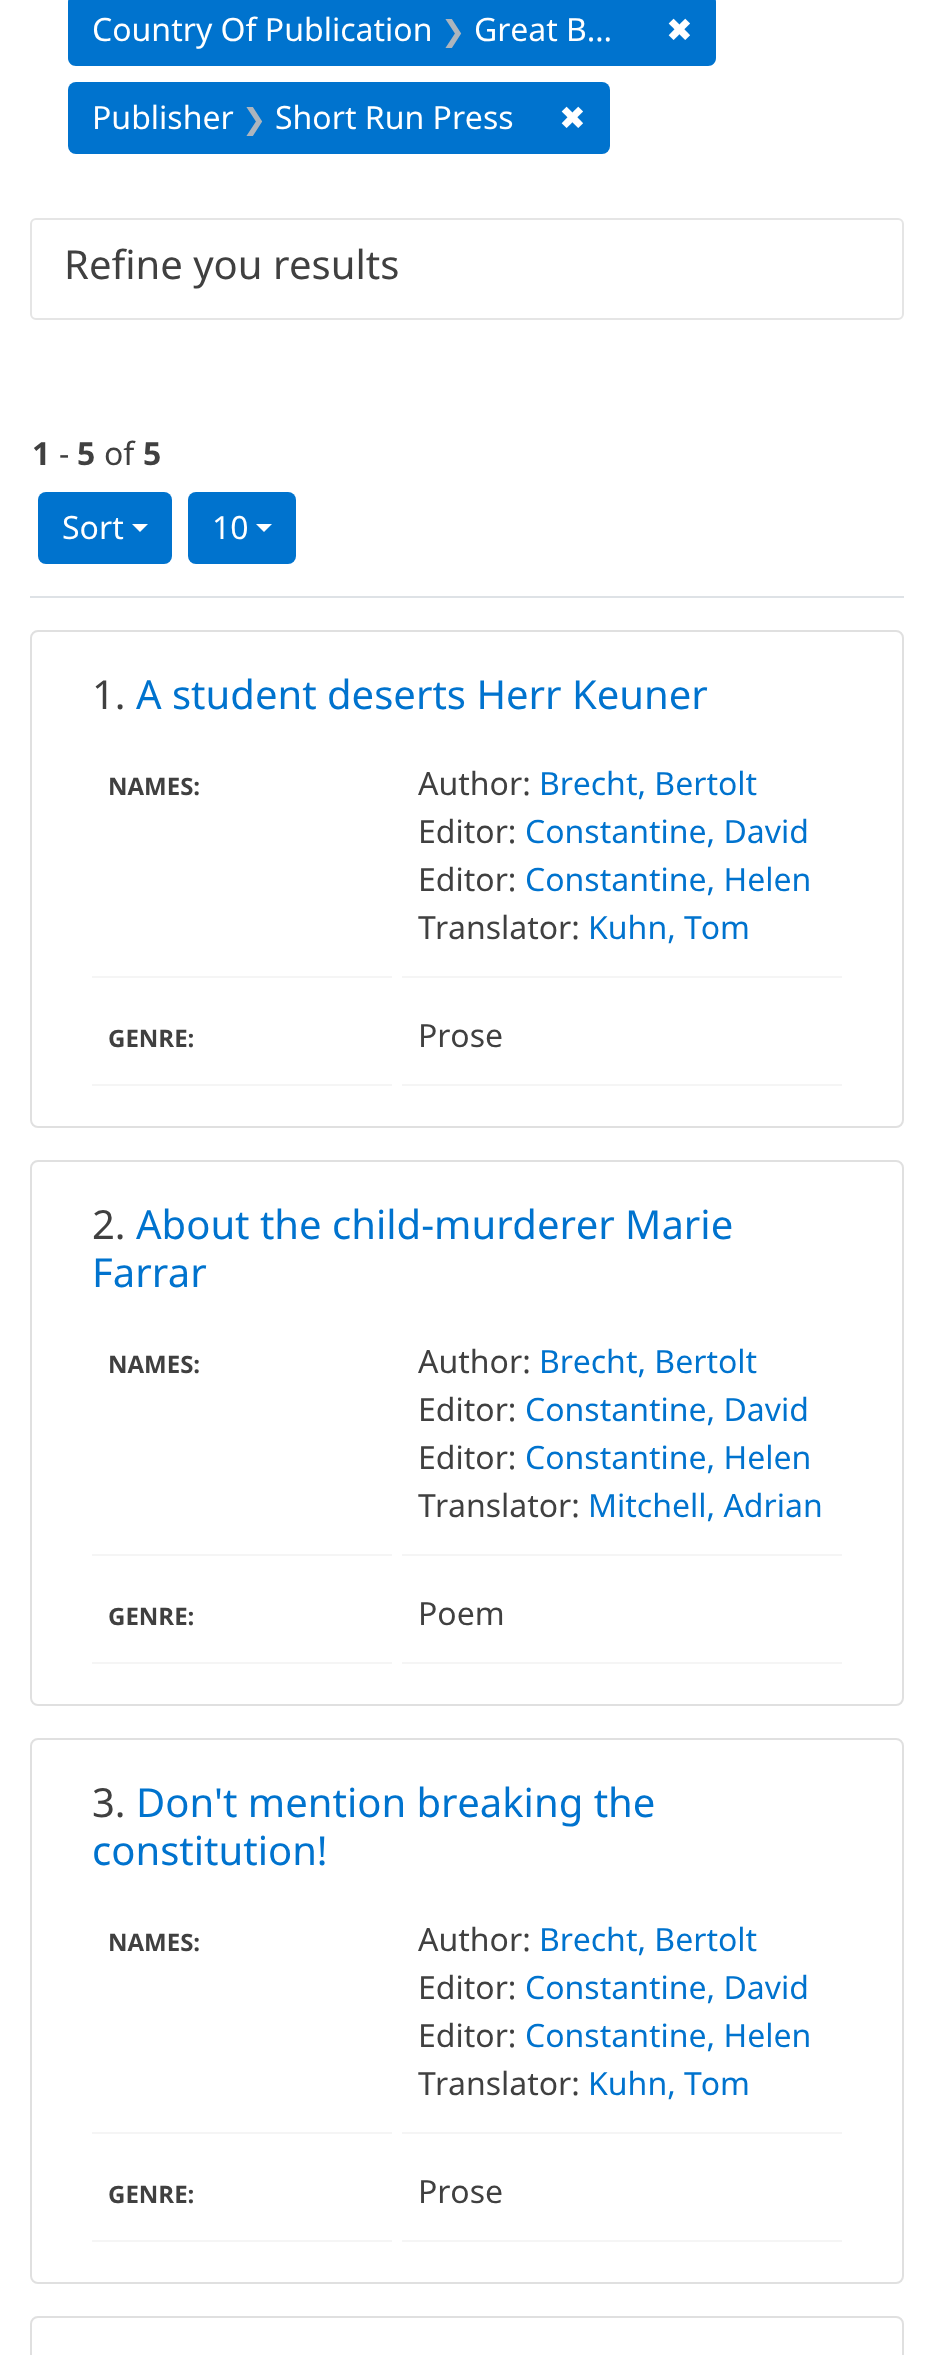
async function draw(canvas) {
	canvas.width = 934;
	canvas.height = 2355;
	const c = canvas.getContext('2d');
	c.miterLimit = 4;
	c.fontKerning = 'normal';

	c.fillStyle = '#fff';
	c.fillRect(0, 0, 934, 2355);
	c.fillStyle = '#0073ce';
	c.beginPath();
	c.moveTo(76, -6);
	c.lineTo(644, -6);
	c.lineTo(644, 66);
	c.lineTo(76, 66);
	c.bezierCurveTo(71.5, 66, 68, 62.5, 68, 58);
	c.lineTo(68, 2);
	c.bezierCurveTo(68, -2.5, 71.5, -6, 76, -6);
	c.closePath();
	c.fill();
	c.font = '32px Noto Sans';
	c.fillStyle = '#fff';
	c.fillText('Country Of Publication', 92, 41);
	c.font = '29px DejaVu Sans';
	c.fillStyle = '#adb5bd';
	c.fillText('❯', 441, 41);
	c.font = '32px Noto Sans';
	c.fillStyle = '#fff';
	c.fillText('Great B…', 474, 41);
	c.fillStyle = '#0073ce';
	c.beginPath();
	c.moveTo(642, -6);
	c.lineTo(708, -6);
	c.bezierCurveTo(712.5, -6, 716, -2.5, 716, 2);
	c.lineTo(716, 58);
	c.bezierCurveTo(716, 62.5, 712.5, 66, 708, 66);
	c.lineTo(642, 66);
	c.closePath();
	c.fill();
	c.font = '32px DejaVu Sans';
	c.fillStyle = '#fff';
	c.fillText('✖', 666, 41);
	c.fillStyle = '#0073ce';
	c.beginPath();
	c.roundRect(68, 82, 470, 72, [8, 0, 0, 8]);
	c.fill();
	c.font = '32px Noto Sans';
	c.fillStyle = '#fff';
	c.fillText('Publisher', 92, 129);
	c.font = '29px DejaVu Sans';
	c.fillStyle = '#adb5bd';
	c.fillText('❯', 242, 129);
	c.font = '32px Noto Sans';
	c.fillStyle = '#fff';
	c.fillText('Short Run Press', 275, 129);
	c.fillStyle = '#0073ce';
	c.beginPath();
	c.roundRect(536, 82, 74, 72, [0, 8, 8, 0]);
	c.fill();
	c.font = '32px DejaVu Sans';
	c.fillStyle = '#fff';
	c.fillText('✖', 559, 129);
	c.beginPath();
	c.roundRect(31, 219, 872, 100, 5);
	c.strokeStyle = '#e5e5e5';
	c.lineWidth = 2;
	c.stroke();
	c.font = '40px Noto Sans';
	c.fillStyle = '#404040';
	c.fillText('Refine you results', 64, 279);
	c.fillStyle = '#dee2e6';
	c.fillRect(30, 596, 874, 2);
	c.font = 'bold 32px Noto Sans';
	c.fillStyle = '#404040';
	c.fillText('1', 32, 465);
	c.font = '32px Noto Sans';
	c.fillText('-', 59, 465);
	c.font = 'bold 32px Noto Sans';
	c.fillText('5', 77, 465);
	c.font = '32px Noto Sans';
	c.fillText('of', 104, 465);
	c.font = 'bold 32px Noto Sans';
	c.fillText('5', 143, 465);
	c.fillStyle = '#0073ce';
	c.beginPath();
	c.roundRect(38, 492, 134, 72, 8);
	c.fill();
	c.font = '32px Noto Sans';
	c.fillStyle = '#fff';
	c.fillText('Sort', 62, 539);
	c.beginPath();
	c.moveTo(132, 524);
	c.lineTo(148, 524);
	c.lineTo(140, 532);
	c.closePath();
	c.fill();
	c.fillStyle = '#0073ce';
	c.beginPath();
	c.roundRect(188, 492, 108, 72, 8);
	c.fill();
	c.fillStyle = '#fff';
	c.fillText('10', 212, 539);
	c.beginPath();
	c.moveTo(256, 524);
	c.lineTo(272, 524);
	c.lineTo(264, 532);
	c.closePath();
	c.fill();
	c.beginPath();
	c.roundRect(31, 631, 872, 496, 7);
	c.strokeStyle = '#e0e0e0';
	c.stroke();
	c.font = '40px Noto Sans';
	c.fillStyle = '#404040';
	c.fillText('1.', 92, 709);
	c.fillStyle = '#0073ce';
	c.fillText('A student deserts Herr Keuner', 136, 709);
	c.fillStyle = '#f5f5f5';
	c.fillRect(92, 976, 300, 2);
	c.font = 'bold 24px Noto Sans';
	c.fillStyle = '#404040';
	c.fillText('NAMES:', 108, 795);
	c.fillStyle = '#f5f5f5';
	c.fillRect(402, 976, 440, 2);
	c.font = '32px Noto Sans';
	c.fillStyle = '#404040';
	c.fillText('Author:', 418, 795);
	c.fillStyle = '#0073ce';
	c.fillText('Brecht, Bertolt', 539, 795);
	c.fillStyle = '#404040';
	c.fillText('Editor:', 418, 843);
	c.fillStyle = '#0073ce';
	c.fillText('Constantine, David', 525, 843);
	c.fillStyle = '#404040';
	c.fillText('Editor:', 418, 891);
	c.fillStyle = '#0073ce';
	c.fillText('Constantine, Helen', 525, 891);
	c.fillStyle = '#404040';
	c.fillText('Translator:', 418, 939);
	c.fillStyle = '#0073ce';
	c.fillText('Kuhn, Tom', 588, 939);
	c.fillStyle = '#f5f5f5';
	c.fillRect(92, 1084, 300, 2);
	c.font = 'bold 24px Noto Sans';
	c.fillStyle = '#404040';
	c.fillText('GENRE:', 108, 1047);
	c.fillStyle = '#f5f5f5';
	c.fillRect(402, 1084, 440, 2);
	c.font = '32px Noto Sans';
	c.fillStyle = '#404040';
	c.fillText('Prose', 418, 1047);
	c.beginPath();
	c.roundRect(31, 1161, 872, 544, 7);
	c.stroke();
	c.font = '40px Noto Sans';
	c.fillText('2.', 92, 1239);
	c.fillStyle = '#0073ce';
	c.fillText('About the child-murderer Marie', 136, 1239);
	c.fillText('Farrar', 92, 1287);
	c.fillStyle = '#f5f5f5';
	c.fillRect(92, 1554, 300, 2);
	c.font = 'bold 24px Noto Sans';
	c.fillStyle = '#404040';
	c.fillText('NAMES:', 108, 1373);
	c.fillStyle = '#f5f5f5';
	c.fillRect(402, 1554, 440, 2);
	c.font = '32px Noto Sans';
	c.fillStyle = '#404040';
	c.fillText('Author:', 418, 1373);
	c.fillStyle = '#0073ce';
	c.fillText('Brecht, Bertolt', 539, 1373);
	c.fillStyle = '#404040';
	c.fillText('Editor:', 418, 1421);
	c.fillStyle = '#0073ce';
	c.fillText('Constantine, David', 525, 1421);
	c.fillStyle = '#404040';
	c.fillText('Editor:', 418, 1469);
	c.fillStyle = '#0073ce';
	c.fillText('Constantine, Helen', 525, 1469);
	c.fillStyle = '#404040';
	c.fillText('Translator:', 418, 1517);
	c.fillStyle = '#0073ce';
	c.fillText('Mitchell, Adrian', 588, 1517);
	c.fillStyle = '#f5f5f5';
	c.fillRect(92, 1662, 300, 2);
	c.font = 'bold 24px Noto Sans';
	c.fillStyle = '#404040';
	c.fillText('GENRE:', 108, 1625);
	c.fillStyle = '#f5f5f5';
	c.fillRect(402, 1662, 440, 2);
	c.font = '32px Noto Sans';
	c.fillStyle = '#404040';
	c.fillText('Poem', 418, 1625);
	c.beginPath();
	c.roundRect(31, 1739, 872, 544, 7);
	c.stroke();
	c.font = '40px Noto Sans';
	c.fillText('3.', 92, 1817);
	c.fillStyle = '#0073ce';
	c.fillText('Don\'t mention breaking the', 136, 1817);
	c.fillText('constitution!', 92, 1865);
	c.fillStyle = '#f5f5f5';
	c.fillRect(92, 2132, 300, 2);
	c.font = 'bold 24px Noto Sans';
	c.fillStyle = '#404040';
	c.fillText('NAMES:', 108, 1951);
	c.fillStyle = '#f5f5f5';
	c.fillRect(402, 2132, 440, 2);
	c.font = '32px Noto Sans';
	c.fillStyle = '#404040';
	c.fillText('Author:', 418, 1951);
	c.fillStyle = '#0073ce';
	c.fillText('Brecht, Bertolt', 539, 1951);
	c.fillStyle = '#404040';
	c.fillText('Editor:', 418, 1999);
	c.fillStyle = '#0073ce';
	c.fillText('Constantine, David', 525, 1999);
	c.fillStyle = '#404040';
	c.fillText('Editor:', 418, 2047);
	c.fillStyle = '#0073ce';
	c.fillText('Constantine, Helen', 525, 2047);
	c.fillStyle = '#404040';
	c.fillText('Translator:', 418, 2095);
	c.fillStyle = '#0073ce';
	c.fillText('Kuhn, Tom', 588, 2095);
	c.fillStyle = '#f5f5f5';
	c.fillRect(92, 2240, 300, 2);
	c.font = 'bold 24px Noto Sans';
	c.fillStyle = '#404040';
	c.fillText('GENRE:', 108, 2203);
	c.fillStyle = '#f5f5f5';
	c.fillRect(402, 2240, 440, 2);
	c.font = '32px Noto Sans';
	c.fillStyle = '#404040';
	c.fillText('Prose', 418, 2203);
	c.beginPath();
	c.roundRect(31, 2317, 872, 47, 7);
	c.stroke();
}

draw(document.querySelector('canvas'));
